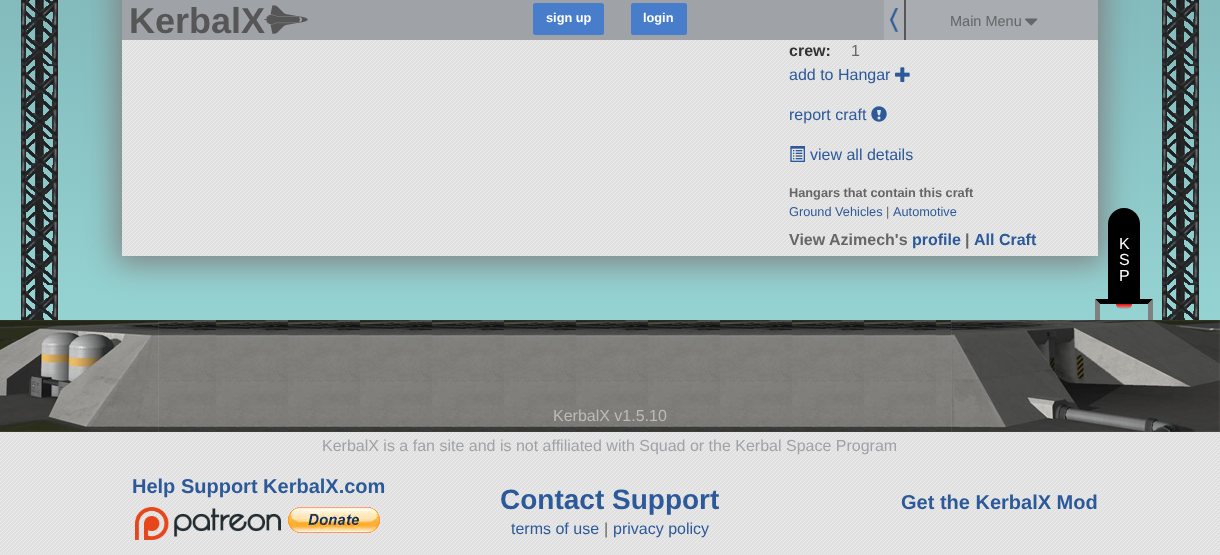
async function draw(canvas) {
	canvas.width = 1220;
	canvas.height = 555;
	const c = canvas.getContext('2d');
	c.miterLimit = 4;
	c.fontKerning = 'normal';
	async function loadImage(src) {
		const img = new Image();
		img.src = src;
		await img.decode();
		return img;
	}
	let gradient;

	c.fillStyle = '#fff';
	c.fillRect(0, 0, 1220, 555);
	c.drawImage(await loadImage('img1.png'), 0, 432, 1220, 123);
	gradient = c.createLinearGradient(610, -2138, 610, 320);
	gradient.addColorStop(0, '#0f1932');
	gradient.addColorStop(1, '#95d3d2');
	c.fillStyle = gradient;
	c.fillRect(0, 0, 1220, 320);
	c.drawImage(await loadImage('img2.png'), 21, 0, 37, 320);
	c.drawImage(await loadImage('img2.png'), 1162, 0, 37, 320);
	c.fillStyle = '#808080';
	c.filter = 'blur(15px)';
	c.beginPath();
	c.rect(117, -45, 986, 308);
	c.fill();
	c.filter = 'none';
	c.drawImage(await loadImage('img3.png'), 122, 40, 976, 216);
	c.fillStyle = '#9fa2a7';
	c.fillRect(122, 0, 762, 40);
	c.font = 'bold 36px Liberation Sans';
	c.fillStyle = '#565657';
	c.fillText('KerbalX', 129, 33);
	c.drawImage(await loadImage('img4.png'), 264, 5, 44, 29);
	c.fillStyle = '#477dca';
	c.beginPath();
	c.roundRect(533, 3, 71, 32, 2.5);
	c.fill();
	c.font = 'bold 12.75px Liberation Sans';
	c.fillStyle = '#fff';
	c.fillText('sign up', 546, 22);
	c.fillStyle = '#477dca';
	c.beginPath();
	c.roundRect(631, 3, 56, 32, 2.5);
	c.fill();
	c.fillStyle = '#fff';
	c.fillText('login', 643, 22);
	c.fillStyle = '#acafb3';
	c.fillRect(884, 0, 20, 40);
	c.fillStyle = '#565657';
	c.fillRect(904, 0, 2, 40);
	c.drawImage(await loadImage('img5.png'), 889, 8, 10, 24);
	c.fillStyle = '#a9acb1';
	c.fillRect(906, 0, 192, 40);
	c.font = '14.5px Liberation Sans';
	c.fillStyle = '#666';
	c.fillText('Main Menu', 950, 26);
	c.drawImage(await loadImage('img6.png'), 1025, 18, 13, 8);
	c.font = 'bold 16px Liberation Sans';
	c.fillStyle = '#333';
	c.fillText('crew:', 789, 56);
	c.font = '16px Liberation Sans';
	c.fillStyle = '#666';
	c.fillText('1', 851, 56);
	c.fillStyle = '#2c5999';
	c.fillText('add to Hangar', 789, 80);
	c.drawImage(await loadImage('img7.png'), 895, 67, 15, 15);
	c.fillText('report craft', 789, 120);
	c.drawImage(await loadImage('img8.png'), 871, 106, 16, 16);
	c.drawImage(await loadImage('img9.png'), 790, 146, 15, 16);
	c.fillText('view all details', 810, 160);
	c.font = 'bold 12.75px Liberation Sans';
	c.fillStyle = '#666';
	c.fillText('Hangars that contain this craft', 789, 197);
	c.font = '12.75px Liberation Sans';
	c.fillStyle = '#2c5999';
	c.fillText('Ground Vehicles', 789, 216);
	c.fillStyle = '#666';
	c.fillText('|', 886, 216);
	c.fillStyle = '#2c5999';
	c.fillText('Automotive', 893, 216);
	c.font = 'bold 16px Liberation Sans';
	c.fillStyle = '#666';
	c.fillText('View Azimech\'s', 789, 245);
	c.fillStyle = '#2c5999';
	c.fillText('profile', 912, 245);
	c.fillStyle = '#666';
	c.fillText('|', 965, 245);
	c.fillStyle = '#2c5999';
	c.fillText('All Craft', 974, 245);
	c.fillStyle = '#000';
	c.fillRect(1108, 240, 32, 59);
	c.beginPath();
	c.roundRect(1108, 208, 32, 32, [16, 16, 0, 0]);
	c.fill();
	c.font = '16px Liberation Sans';
	c.fillStyle = '#fff';
	for (const [text, x, y] of [
		['K', 1119, 249],
		['S', 1119, 265],
		['P', 1119, 281],
	]) {
		c.fillText(text, x, y);
	}
	gradient = c.createLinearGradient(1124, 304, 1124, 309);
	gradient.addColorStop(0, '#f00');
	gradient.addColorStop(1, '#99c7c7');
	c.fillStyle = gradient;
	c.beginPath();
	c.roundRect(1116, 304, 16, 5, [0, 0, 5, 5]);
	c.fill();
	c.fillStyle = '#000';
	c.beginPath();
	c.moveTo(1095, 299);
	c.lineTo(1153, 299);
	c.lineTo(1148, 304);
	c.lineTo(1100, 304);
	c.closePath();
	c.fill();
	c.fillStyle = '#808080';
	c.beginPath();
	c.moveTo(1153, 299);
	c.lineTo(1153, 320);
	c.lineTo(1148, 320);
	c.lineTo(1148, 304);
	c.closePath();
	c.moveTo(1095, 320);
	c.lineTo(1095, 299);
	c.lineTo(1100, 304);
	c.lineTo(1100, 320);
	c.closePath();
	c.fill();
	c.drawImage(await loadImage('img10.png'), 159, 320, 792, 112);
	c.drawImage(await loadImage('img11.png'), 0, 320, 159, 112);
	c.fillStyle = '#bcbbb9';
	c.fillText('KerbalX v1.5.10', 553, 421);
	c.drawImage(await loadImage('img12.png'), 951, 320, 269, 112);
	c.fillStyle = '#9fa2a7';
	c.fillText('KerbalX is a fan site and is not affiliated with Squad or the Kerbal Space Program', 322, 451);
	c.font = 'bold 20px Liberation Sans';
	c.fillStyle = '#2c5999';
	c.fillText('Help Support KerbalX.com', 132, 493);
	c.drawImage(await loadImage('img13.png'), 135, 507, 146, 33);
	c.drawImage(await loadImage('img14.png'), 288, 507, 92, 26);
	c.font = 'bold 28px Liberation Sans';
	c.fillText('Contact Support', 500, 509);
	c.font = '16px Liberation Sans';
	c.fillText('terms of use', 511, 534);
	c.fillStyle = '#666';
	c.fillText('|', 604, 534);
	c.fillStyle = '#2c5999';
	c.fillText('privacy policy', 613, 534);
	c.font = 'bold 20px Liberation Sans';
	c.fillText('Get the KerbalX Mod', 901, 509);
}

draw(document.querySelector('canvas'));
